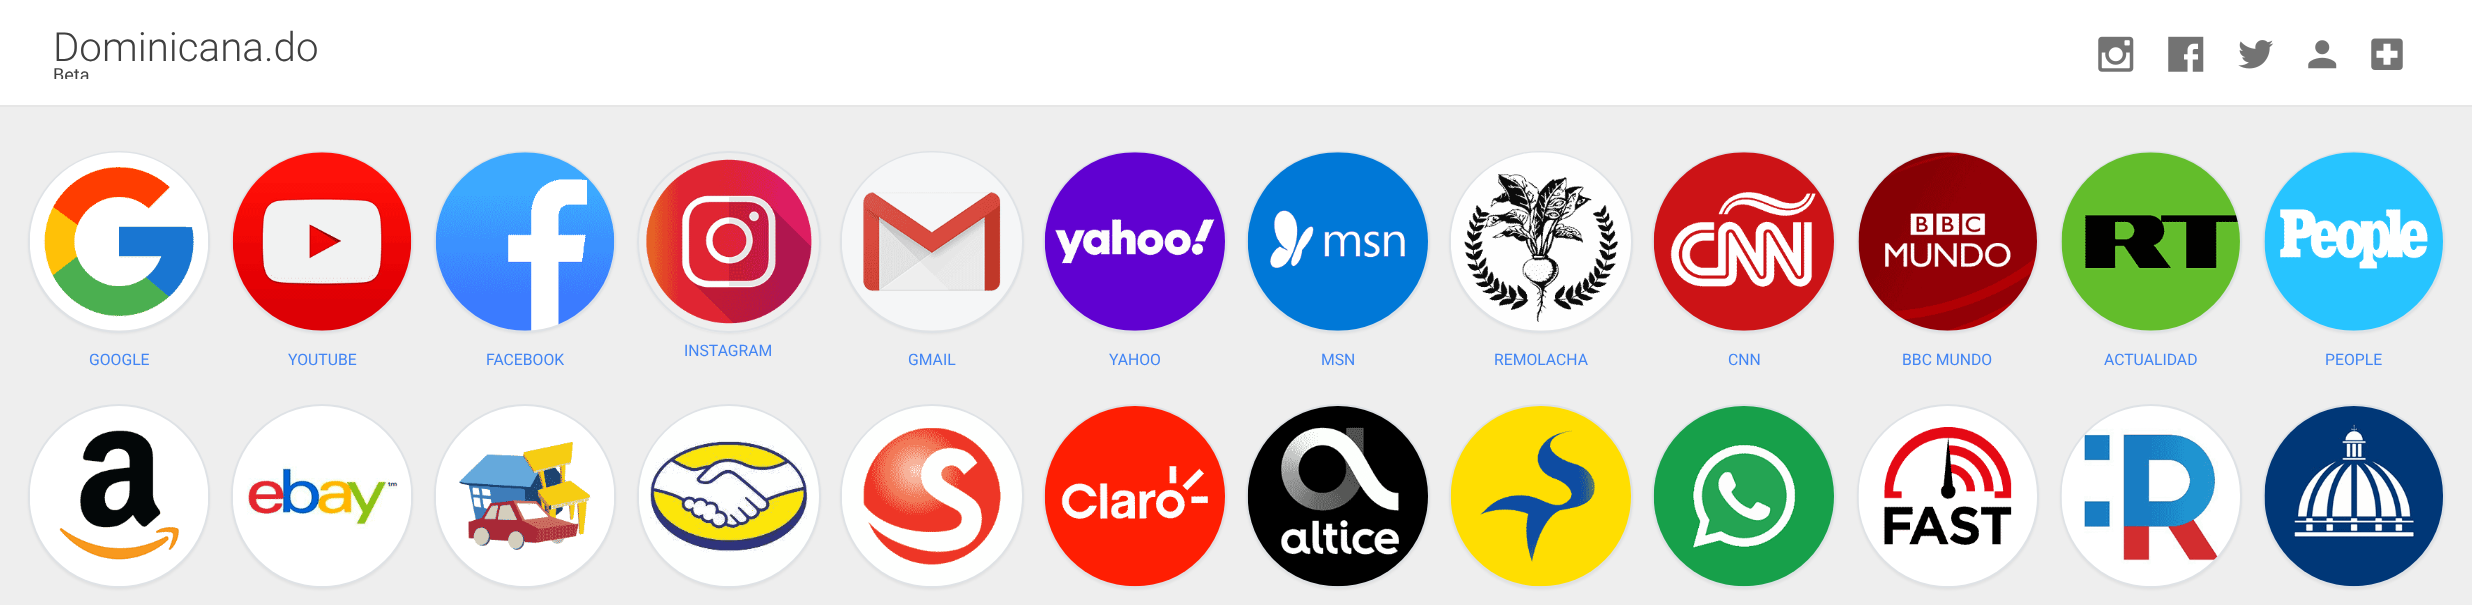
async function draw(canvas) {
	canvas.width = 2472;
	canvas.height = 605;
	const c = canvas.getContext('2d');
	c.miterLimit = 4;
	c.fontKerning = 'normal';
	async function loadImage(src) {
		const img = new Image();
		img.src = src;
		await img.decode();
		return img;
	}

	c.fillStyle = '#eee';
	c.fillRect(0, 0, 2472, 605);
	c.fillStyle = '#fff';
	c.fillRect(0, 0, 2472, 105);
	c.fillStyle = '#e6e6e6';
	c.fillRect(0, 105, 2472, 2);
	c.font = '300 40.25px Roboto';
	c.fillStyle = '#404040';
	c.fillText('Dominicana.do', 53, 61);
	c.save();
	c.beginPath();
	c.rect(18, 26, 336, 53);
	c.clip();
	c.font = '18px Roboto';
	c.fillText('Beta', 53, 81);
	c.restore();
	c.drawImage(await loadImage('img1.png'), 2098, 36, 36, 36);
	c.drawImage(await loadImage('img2.png'), 2168, 36, 36, 36);
	c.drawImage(await loadImage('img3.png'), 2238, 40, 36, 29);
	c.drawImage(await loadImage('img4.png'), 2308, 40, 29, 29);
	c.drawImage(await loadImage('img5.png'), 2371, 38, 32, 32);
	c.save();
	c.beginPath();
	c.moveTo(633, 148);
	c.lineTo(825, 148);
	c.lineTo(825, 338);
	c.lineTo(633, 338);
	c.closePath();
	c.moveTo(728, 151);
	c.lineTo(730, 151);
	c.bezierCurveTo(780.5, 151, 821, 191.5, 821, 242);
	c.bezierCurveTo(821, 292.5, 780.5, 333, 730, 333);
	c.lineTo(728, 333);
	c.bezierCurveTo(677.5, 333, 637, 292.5, 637, 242);
	c.bezierCurveTo(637, 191.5, 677.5, 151, 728, 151);
	c.closePath();
	c.clip('evenodd');
	c.fillStyle = '#0000000d';
	c.filter = 'blur(1px)';
	c.beginPath();
	c.roundRect(637, 152, 184, 182, 91);
	c.fill();
	c.filter = 'none';
	c.restore();
	c.beginPath();
	c.roundRect(638, 152, 182, 180, 90);
	c.strokeStyle = '#dee2e6';
	c.lineWidth = 2;
	c.stroke();
	c.drawImage(await loadImage('img6.png'), 646, 159, 166, 165);
	c.font = '15.75px Roboto';
	c.fillStyle = '#4285f4';
	c.fillText('INSTAGRAM', 684, 356);
	c.fillStyle = '#0000000d';
	c.filter = 'blur(1px)';
	c.beginPath();
	c.roundRect(28, 152, 182, 182, 91);
	c.fill();
	c.filter = 'none';
	c.beginPath();
	c.arc(119, 242, 90, 0, 2 * Math.PI);
	c.stroke();
	c.drawImage(await loadImage('img7.png'), 30, 152, 178, 179);
	c.fillStyle = '#4285f4';
	c.fillText('GOOGLE', 89, 365);
	c.fillStyle = '#0000000d';
	c.filter = 'blur(1px)';
	c.beginPath();
	c.roundRect(231, 152, 182, 182, 91);
	c.fill();
	c.filter = 'none';
	c.beginPath();
	c.arc(322, 242, 90, 0, 2 * Math.PI);
	c.stroke();
	c.drawImage(await loadImage('img8.png'), 232, 152, 180, 179);
	c.fillStyle = '#4285f4';
	c.fillText('YOUTUBE', 288, 365);
	c.fillStyle = '#0000000d';
	c.filter = 'blur(1px)';
	c.beginPath();
	c.roundRect(434, 152, 182, 182, 91);
	c.fill();
	c.filter = 'none';
	c.beginPath();
	c.arc(525, 242, 90, 0, 2 * Math.PI);
	c.stroke();
	c.drawImage(await loadImage('img9.png'), 435, 152, 180, 179);
	c.fillStyle = '#4285f4';
	c.fillText('FACEBOOK', 486, 365);
	c.fillStyle = '#0000000d';
	c.filter = 'blur(1px)';
	c.beginPath();
	c.roundRect(840, 152, 184, 182, 91);
	c.fill();
	c.filter = 'none';
	c.beginPath();
	c.roundRect(841, 152, 182, 180, 90);
	c.stroke();
	c.drawImage(await loadImage('img10.png'), 842, 152, 180, 179);
	c.fillStyle = '#4285f4';
	c.fillText('GMAIL', 908, 365);
	c.fillStyle = '#0000000d';
	c.filter = 'blur(1px)';
	c.beginPath();
	c.roundRect(1043, 152, 184, 182, 91);
	c.fill();
	c.filter = 'none';
	c.beginPath();
	c.roundRect(1044, 152, 182, 180, 90);
	c.stroke();
	c.drawImage(await loadImage('img11.png'), 1044, 152, 181, 179);
	c.fillStyle = '#4285f4';
	c.fillText('YAHOO', 1109, 365);
	c.fillStyle = '#0000000d';
	c.filter = 'blur(1px)';
	c.beginPath();
	c.roundRect(1246, 152, 184, 182, 91);
	c.fill();
	c.filter = 'none';
	c.beginPath();
	c.roundRect(1247, 152, 182, 180, 90);
	c.stroke();
	c.drawImage(await loadImage('img12.png'), 1247, 152, 181, 179);
	c.fillStyle = '#4285f4';
	c.fillText('MSN', 1321, 365);
	c.fillStyle = '#0000000d';
	c.filter = 'blur(1px)';
	c.beginPath();
	c.roundRect(1449, 152, 184, 182, 91);
	c.fill();
	c.filter = 'none';
	c.beginPath();
	c.roundRect(1450, 152, 182, 180, 90);
	c.stroke();
	c.drawImage(await loadImage('img13.png'), 1451, 152, 180, 179);
	c.fillStyle = '#4285f4';
	c.fillText('REMOLACHA', 1494, 365);
	c.fillStyle = '#0000000d';
	c.filter = 'blur(1px)';
	c.beginPath();
	c.roundRect(1652, 152, 184, 182, 91);
	c.fill();
	c.filter = 'none';
	c.beginPath();
	c.roundRect(1653, 152, 182, 180, 90);
	c.stroke();
	c.drawImage(await loadImage('img14.png'), 1653, 152, 181, 179);
	c.fillStyle = '#4285f4';
	c.fillText('CNN', 1728, 365);
	c.fillStyle = '#0000000d';
	c.filter = 'blur(1px)';
	c.beginPath();
	c.roundRect(1857, 152, 182, 182, 91);
	c.fill();
	c.filter = 'none';
	c.beginPath();
	c.arc(1948, 242, 90, 0, 2 * Math.PI);
	c.stroke();
	c.drawImage(await loadImage('img15.png'), 1858, 152, 179, 179);
	c.fillStyle = '#4285f4';
	c.fillText('BBC MUNDO', 1902, 365);
	c.fillStyle = '#0000000d';
	c.filter = 'blur(1px)';
	c.beginPath();
	c.roundRect(2060, 152, 182, 182, 91);
	c.fill();
	c.filter = 'none';
	c.beginPath();
	c.arc(2151, 242, 90, 0, 2 * Math.PI);
	c.stroke();
	c.drawImage(await loadImage('img16.png'), 2061, 152, 179, 179);
	c.fillStyle = '#4285f4';
	c.fillText('ACTUALIDAD', 2104, 365);
	c.fillStyle = '#0000000d';
	c.filter = 'blur(1px)';
	c.beginPath();
	c.roundRect(2263, 152, 182, 182, 91);
	c.fill();
	c.filter = 'none';
	c.beginPath();
	c.arc(2354, 242, 90, 0, 2 * Math.PI);
	c.stroke();
	c.drawImage(await loadImage('img17.png'), 2264, 152, 179, 179);
	c.fillStyle = '#4285f4';
	c.fillText('PEOPLE', 2325, 365);
	c.fillStyle = '#0000000d';
	c.filter = 'blur(1px)';
	c.beginPath();
	c.roundRect(28, 406, 182, 184, 91);
	c.fill();
	c.filter = 'none';
	c.beginPath();
	c.roundRect(29, 405, 180, 182, 90);
	c.stroke();
	c.drawImage(await loadImage('img18.png'), 30, 406, 178, 180);
	c.filter = 'blur(1px)';
	c.beginPath();
	c.roundRect(231, 406, 182, 184, 91);
	c.fill();
	c.filter = 'none';
	c.beginPath();
	c.roundRect(232, 405, 180, 182, 90);
	c.stroke();
	c.drawImage(await loadImage('img19.png'), 233, 406, 178, 180);
	c.filter = 'blur(1px)';
	c.beginPath();
	c.roundRect(434, 406, 182, 184, 91);
	c.fill();
	c.filter = 'none';
	c.beginPath();
	c.roundRect(435, 405, 180, 182, 90);
	c.stroke();
	c.drawImage(await loadImage('img20.png'), 436, 406, 178, 180);
	c.filter = 'blur(1px)';
	c.beginPath();
	c.roundRect(637, 406, 184, 184, 92);
	c.fill();
	c.filter = 'none';
	c.beginPath();
	c.arc(729, 496, 91, 0, 2 * Math.PI);
	c.stroke();
	c.drawImage(await loadImage('img21.png'), 639, 406, 180, 180);
	c.filter = 'blur(1px)';
	c.beginPath();
	c.roundRect(840, 406, 184, 184, 92);
	c.fill();
	c.filter = 'none';
	c.beginPath();
	c.arc(932, 496, 91, 0, 2 * Math.PI);
	c.stroke();
	c.drawImage(await loadImage('img22.png'), 842, 406, 180, 180);
	c.filter = 'blur(1px)';
	c.beginPath();
	c.roundRect(1043, 406, 184, 184, 92);
	c.fill();
	c.filter = 'none';
	c.beginPath();
	c.arc(1135, 496, 91, 0, 2 * Math.PI);
	c.stroke();
	c.drawImage(await loadImage('img23.png'), 1044, 406, 181, 181);
	c.filter = 'blur(1px)';
	c.beginPath();
	c.roundRect(1246, 406, 184, 184, 92);
	c.fill();
	c.filter = 'none';
	c.beginPath();
	c.arc(1338, 496, 91, 0, 2 * Math.PI);
	c.stroke();
	c.drawImage(await loadImage('img24.png'), 1247, 406, 181, 181);
	c.filter = 'blur(1px)';
	c.beginPath();
	c.roundRect(1449, 406, 184, 184, 92);
	c.fill();
	c.filter = 'none';
	c.beginPath();
	c.arc(1541, 496, 91, 0, 2 * Math.PI);
	c.stroke();
	c.drawImage(await loadImage('img25.png'), 1450, 406, 181, 181);
	c.filter = 'blur(1px)';
	c.beginPath();
	c.roundRect(1652, 406, 184, 184, 92);
	c.fill();
	c.filter = 'none';
	c.beginPath();
	c.arc(1744, 496, 91, 0, 2 * Math.PI);
	c.stroke();
	c.drawImage(await loadImage('img26.png'), 1653, 406, 181, 181);
	c.filter = 'blur(1px)';
	c.beginPath();
	c.roundRect(1857, 406, 182, 184, 91);
	c.fill();
	c.filter = 'none';
	c.beginPath();
	c.roundRect(1858, 405, 180, 182, 90);
	c.stroke();
	c.drawImage(await loadImage('img27.png'), 1858, 406, 179, 180);
	c.filter = 'blur(1px)';
	c.beginPath();
	c.roundRect(2060, 406, 182, 184, 91);
	c.fill();
	c.filter = 'none';
	c.beginPath();
	c.roundRect(2061, 405, 180, 182, 90);
	c.stroke();
	c.drawImage(await loadImage('img28.png'), 2061, 406, 179, 180);
	c.filter = 'blur(1px)';
	c.beginPath();
	c.roundRect(2263, 406, 182, 184, 91);
	c.fill();
	c.filter = 'none';
	c.beginPath();
	c.roundRect(2264, 405, 180, 182, 90);
	c.stroke();
	c.drawImage(await loadImage('img29.png'), 2264, 406, 179, 181);
}

draw(document.querySelector('canvas'));
